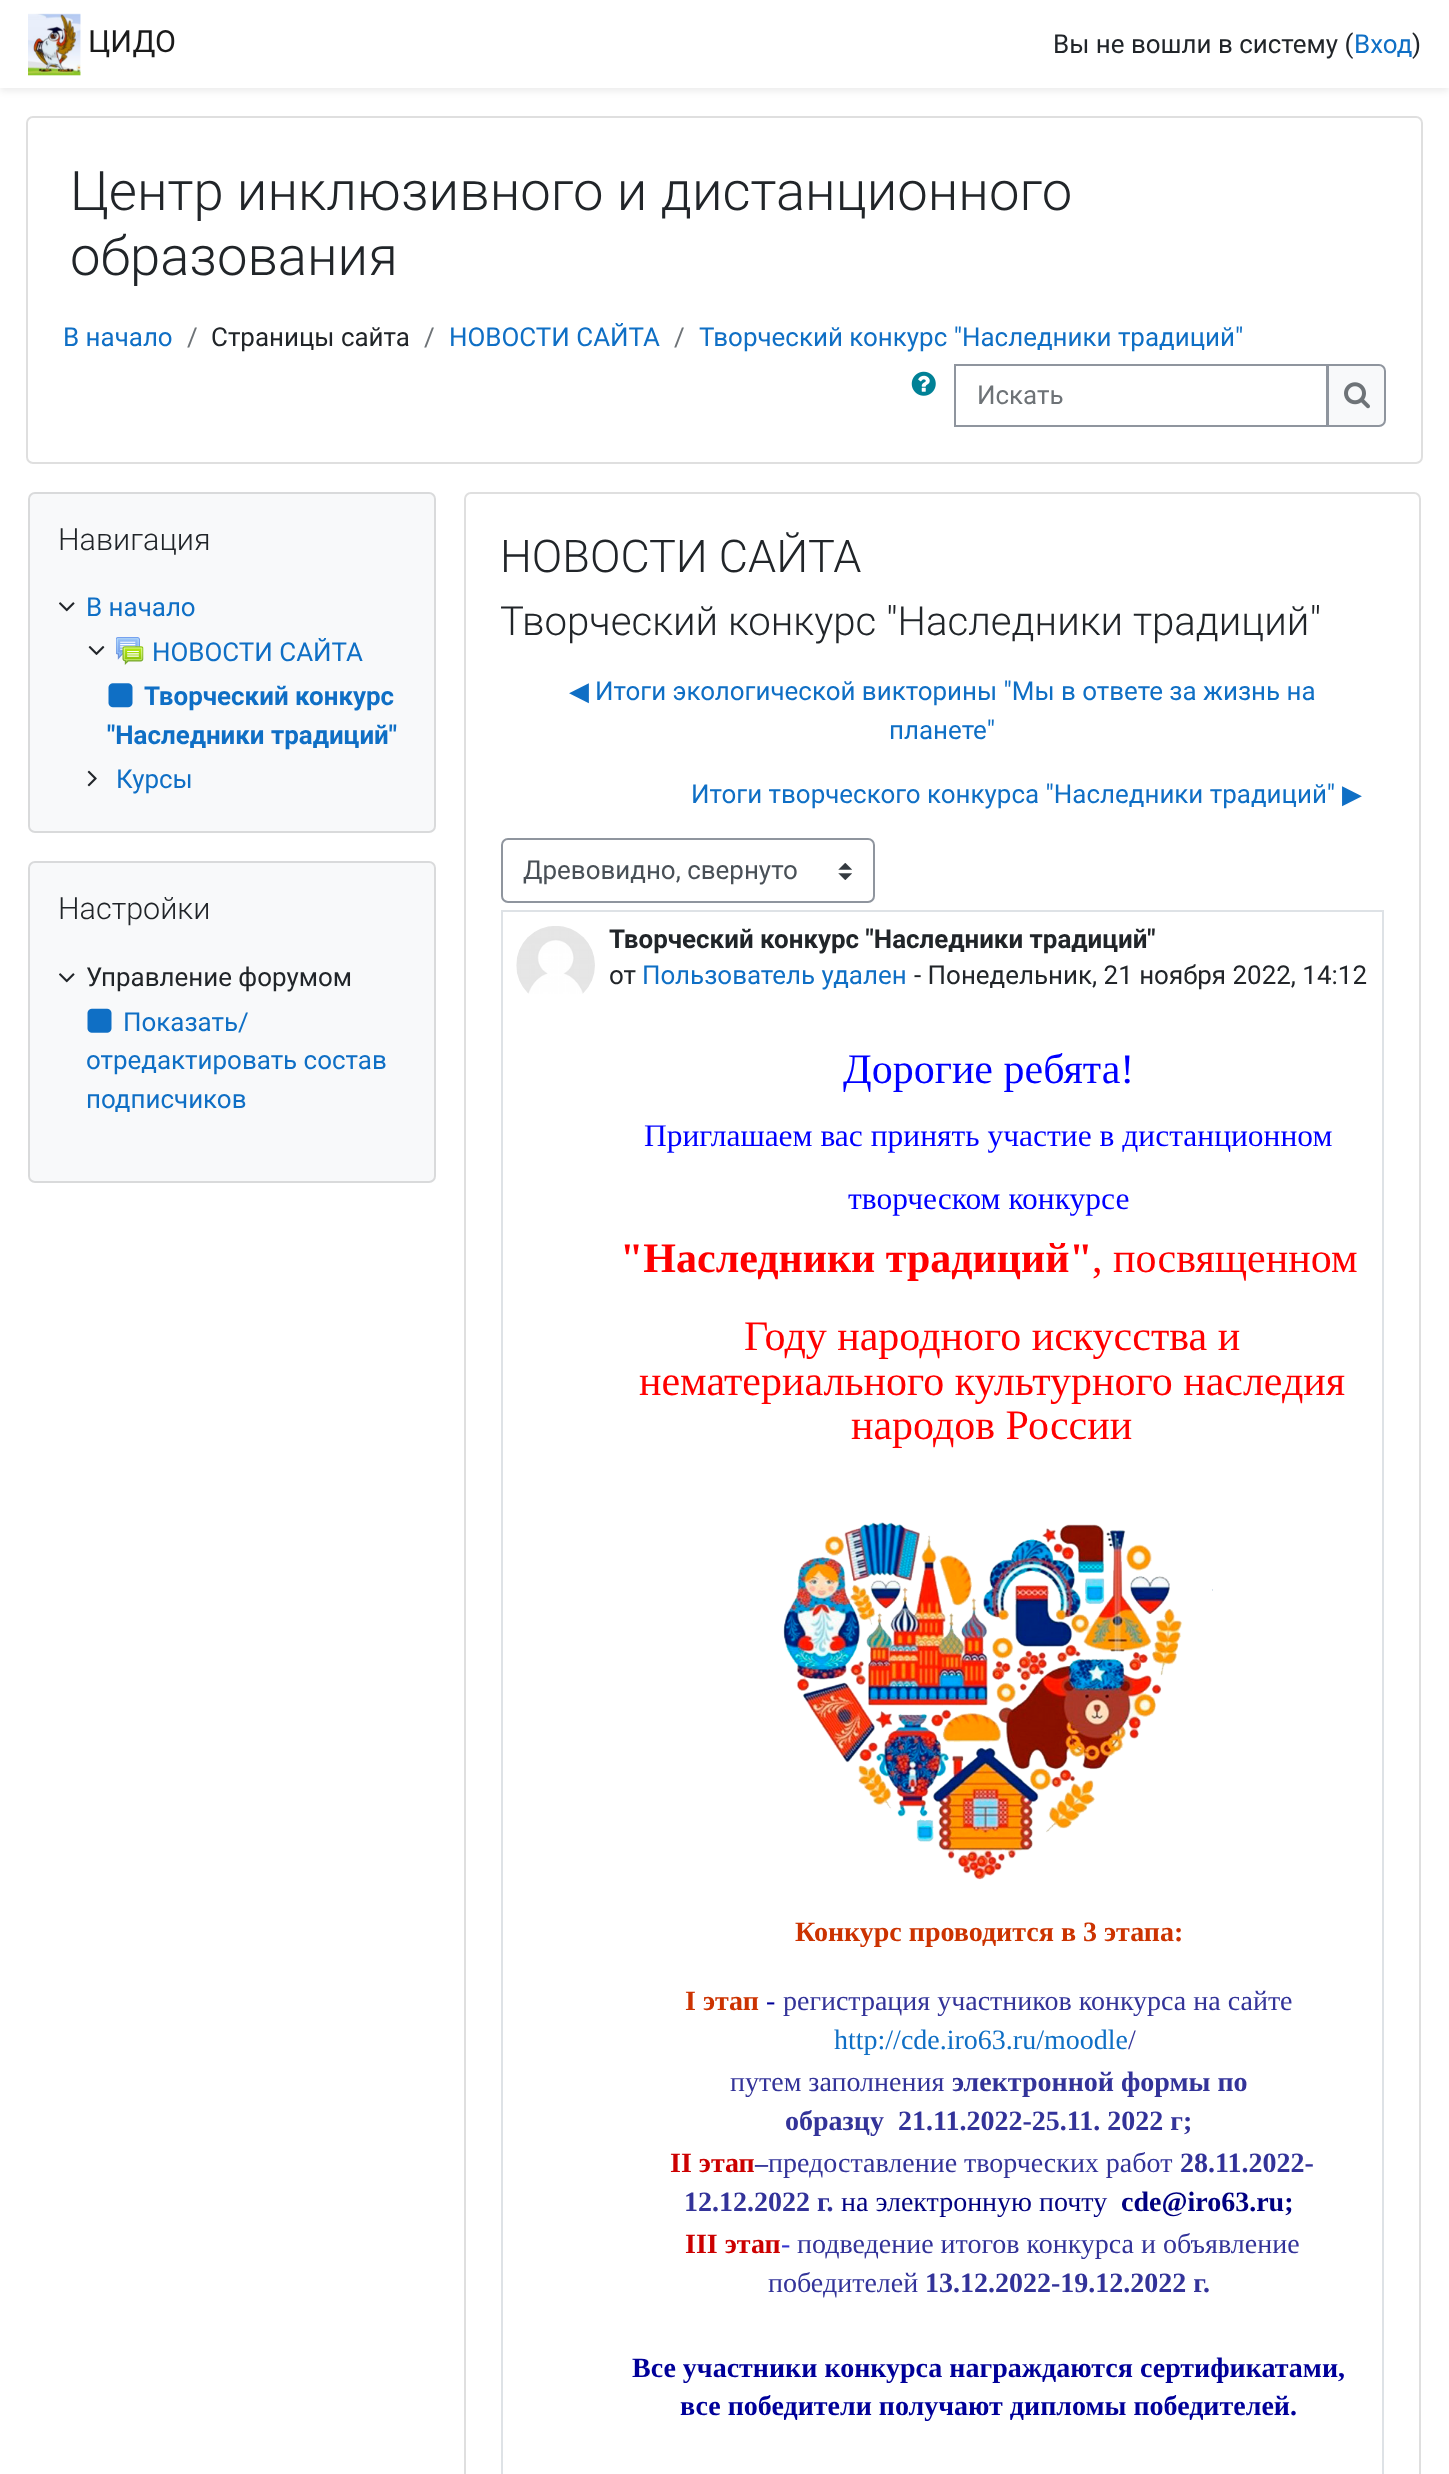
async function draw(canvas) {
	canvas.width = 1449;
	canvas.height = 2474;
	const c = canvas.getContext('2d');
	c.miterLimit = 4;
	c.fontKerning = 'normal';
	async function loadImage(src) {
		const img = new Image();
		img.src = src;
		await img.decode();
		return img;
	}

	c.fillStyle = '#fff';
	c.fillRect(0, 0, 1449, 2474);
	c.fillStyle = '#00000014';
	c.filter = 'blur(3.5px)';
	c.beginPath();
	c.rect(0, 4, 1449, 87);
	c.fill();
	c.filter = 'none';
	c.fillStyle = '#fff';
	c.fillRect(0, 0, 1449, 88);
	c.drawImage(await loadImage('img1.png'), 28, 13, 53, 63);
	c.font = '30.5px Roboto';
	c.fillStyle = '#1a1a1a';
	c.fillText('ЦИДО', 88, 52);
	c.font = '25.95px Roboto';
	c.fillStyle = '#212529';
	c.fillText('Вы не вошли в систему (', 1053, 53);
	c.fillStyle = '#0f6fc5';
	c.fillText('Вход', 1354, 53);
	c.fillStyle = '#212529';
	c.fillText(')', 1412, 53);
	c.beginPath();
	c.roundRect(27, 117, 1395, 346, 6);
	c.strokeStyle = '#dfdfdf';
	c.lineWidth = 2;
	c.stroke();
	c.font = '300 54.4px Roboto';
	c.fillText('Центр инклюзивного и дистанционного', 70, 210);
	c.fillText('образования', 70, 275);
	c.font = '25.95px Roboto';
	c.fillStyle = '#0f6fc5';
	c.fillText('В начало', 63, 346);
	c.fillStyle = '#6e7377';
	c.fillText('/', 187, 346);
	c.fillStyle = '#212529';
	c.fillText('Страницы сайта', 211, 346);
	c.fillStyle = '#6e7377';
	c.fillText('/', 424, 346);
	c.fillStyle = '#0f6fc5';
	c.fillText('НОВОСТИ САЙТА', 449, 346);
	c.fillStyle = '#6e7377';
	c.fillText('/', 674, 346);
	c.fillStyle = '#0f6fc5';
	c.fillText('Творческий конкурс "Наследники традиций"', 699, 346);
	c.drawImage(await loadImage('img2.png'), 911, 371, 25, 25);
	c.strokeStyle = '#8f959e';
	c.strokeRect(955, 365, 372, 61);
	c.fillStyle = '#6e7377';
	c.fillText('Искать', 977, 404);
	c.fillStyle = '#f8f9fa';
	c.beginPath();
	c.roundRect(1328, 365, 57, 61, [0, 6, 6, 0]);
	c.fill();
	c.stroke();
	c.drawImage(await loadImage('img3.png'), 1344, 382, 26, 27);
	c.beginPath();
	c.roundRect(28, 492, 408, 341, 7);
	c.fill();
	c.beginPath();
	c.roundRect(29, 493, 406, 339, 6);
	c.strokeStyle = '#0000001f';
	c.stroke();
	c.font = '300 30.5px Roboto';
	c.fillStyle = '#212529';
	c.fillText('Навигация', 58, 550);
	c.drawImage(await loadImage('img4.png'), 59, 602, 16, 10);
	c.font = '25.95px Roboto';
	c.fillStyle = '#0f6fc5';
	c.fillText('В начало', 86, 616);
	c.drawImage(await loadImage('img5.png'), 88, 646, 17, 9);
	c.drawImage(await loadImage('img6.png'), 116, 637, 28, 28);
	c.fillText('НОВОСТИ САЙТА', 152, 661);
	c.drawImage(await loadImage('img7.png'), 108, 683, 25, 25);
	c.font = 'bold 25.95px Roboto';
	c.fillText('Творческий конкурс', 144, 705);
	c.fillText('"Наследники традиций"', 107, 744);
	c.drawImage(await loadImage('img8.png'), 87, 770, 10, 17);
	c.font = '25.95px Roboto';
	c.fillText('Курсы', 116, 788);
	c.fillStyle = '#f8f9fa';
	c.beginPath();
	c.roundRect(28, 861, 408, 322, 7);
	c.fill();
	c.beginPath();
	c.roundRect(29, 862, 406, 320, 6);
	c.stroke();
	c.font = '300 30.5px Roboto';
	c.fillStyle = '#212529';
	c.fillText('Настройки', 58, 919);
	c.drawImage(await loadImage('img4.png'), 59, 973, 16, 10);
	c.font = '25.95px Roboto';
	c.fillText('Управление форумом', 86, 986);
	c.drawImage(await loadImage('img9.png'), 87, 1008, 25, 25);
	c.fillStyle = '#0f6fc5';
	for (const [text, x, y] of [
		['Показать/', 123, 1031],
		['отредактировать состав', 86, 1069],
		['подписчиков', 86, 1108],
	]) {
		c.fillText(text, x, y);
	}
	c.beginPath();
	c.roundRect(465, 493, 955, 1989, 6);
	c.strokeStyle = '#dfdfdf';
	c.stroke();
	c.font = '300 45px Roboto';
	c.fillStyle = '#212529';
	c.fillText('НОВОСТИ САЙТА', 500, 572);
	c.font = '300 40.15px Roboto';
	c.fillText('Творческий конкурс "Наследники традиций"', 500, 635);
	c.font = '25.95px DejaVu Sans';
	c.fillStyle = '#0f6fc5';
	c.fillText('◀︎', 569, 700);
	c.font = '25.95px Roboto';
	for (const [text, x, y] of [
		['Итоги экологической викторины "Мы в ответе за жизнь на', 595, 700],
		['планете"', 889, 739],
		['Итоги творческого конкурса "Наследники традиций"', 691, 803],
	]) {
		c.fillText(text, x, y);
	}
	c.font = '25.95px DejaVu Sans';
	c.fillText('▶︎', 1342, 803);
	c.drawImage(await loadImage('img10.png'), 838, 863, 14, 17);
	c.beginPath();
	c.roundRect(502, 839, 372, 63, 6);
	c.strokeStyle = '#8f959e';
	c.stroke();
	c.font = '25.95px Roboto';
	c.fillStyle = '#495057';
	c.fillText('Древовидно, свернуто', 523, 879);
	c.strokeStyle = '#dee2e6';
	c.strokeRect(502, 911, 881, 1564);
	c.drawImage(await loadImage('img11.png'), 516, 926, 79, 68);
	c.font = 'bold 25.95px Roboto';
	c.fillStyle = '#212529';
	c.fillText('Творческий конкурс "Наследники традиций"', 609, 948);
	c.font = '25.95px Roboto';
	c.fillText('от', 609, 984);
	c.fillStyle = '#0f6fc5';
	c.fillText('Пользователь удален', 642, 984);
	c.fillStyle = '#212529';
	c.fillText('- Понедельник, 21 ноября 2022, 14:12', 914, 984);
	c.font = '42px Liberation Serif';
	c.fillStyle = '#00f';
	c.fillText('Дорогие ребята!', 843, 1083);
	c.font = '31.5px Liberation Serif';
	c.fillText('Приглашаем вас принять участие в дистанционном', 644, 1146);
	c.fillText('творческом конкурсе', 848, 1209);
	c.font = 'bold 42px Liberation Serif';
	c.fillStyle = '#f00';
	c.fillText('"Наследники традиций"', 620, 1272);
	c.font = '42px Liberation Serif';
	for (const [text, x, y] of [
		[', посвященном', 1092, 1272],
		['Году народного искусства и', 744, 1350],
		['нематериального культурного наследия', 639, 1395],
		['народов России', 851, 1439],
	]) {
		c.fillText(text, x, y);
	}
	c.drawImage(await loadImage('img12.png'), 783, 1522, 430, 358);
	c.font = 'bold 28px Liberation Serif';
	c.fillStyle = '#c30';
	c.fillText('Конкурс проводится в 3 этапа:', 795, 1941);
	c.fillText('I этап', 685, 2010);
	c.font = '28px Liberation Serif';
	c.fillStyle = '#009';
	c.fillText('-', 766, 2010);
	c.fillStyle = '#339';
	c.fillText('регистрация участников конкурса на сайте', 783, 2010);
	c.fillStyle = '#0f6fc5';
	c.fillText('http://cde.iro63.ru/moodle', 834, 2049);
	c.fillStyle = '#339';
	c.fillText('/', 1128, 2049);
	c.fillText('путем заполнения', 730, 2091);
	c.font = 'bold 28px Liberation Serif';
	for (const [text, x, y] of [
		['электронной формы по', 952, 2091],
		['образцу', 785, 2130],
		['21.11.2022-25.11. 2022 г;', 898, 2130],
	]) {
		c.fillText(text, x, y);
	}
	c.fillStyle = '#c00';
	c.fillText('II этап', 670, 2172);
	c.font = 'bold 25.95px Liberation Serif';
	c.fillStyle = '#339';
	c.fillText('–', 755, 2172);
	c.font = '28px Liberation Serif';
	c.fillText('предоставление творческих работ', 768, 2172);
	c.font = 'bold 28px Liberation Serif';
	c.fillText('28.11.2022-', 1180, 2172);
	c.fillText('12.12.2022 г.', 684, 2211);
	c.font = '28px Liberation Serif';
	c.fillStyle = '#000080';
	c.fillText('на электронную почту', 841, 2211);
	c.font = 'bold 28px Liberation Serif';
	c.fillText('cde@iro63.ru;', 1121, 2211);
	c.fillStyle = '#c00';
	c.fillText('III этап', 685, 2253);
	c.font = '28px Liberation Serif';
	c.fillStyle = '#33c';
	c.fillText('-', 781, 2253);
	c.fillStyle = '#339';
	c.fillText('подведение итогов конкурса и объявление', 797, 2253);
	c.fillText('победителей', 768, 2292);
	c.font = 'bold 28px Liberation Serif';
	c.fillText('13.12.2022-19.12.2022 г.', 925, 2292);
	c.fillStyle = '#009';
	c.fillText('Все участники конкурса награждаются сертификатами,', 632, 2377);
	c.fillText('все победители получают дипломы победителей.', 680, 2415);
}

draw(document.querySelector('canvas'));
